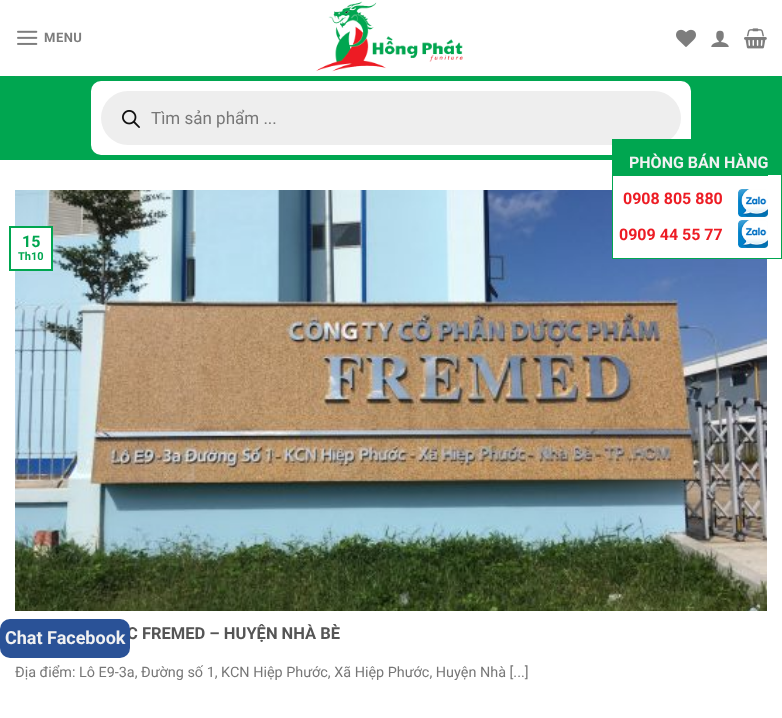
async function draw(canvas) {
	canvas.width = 782;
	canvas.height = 718;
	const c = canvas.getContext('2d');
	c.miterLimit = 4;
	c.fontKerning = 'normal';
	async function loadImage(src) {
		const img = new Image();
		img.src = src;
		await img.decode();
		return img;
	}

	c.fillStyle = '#fff';
	c.fillRect(0, 0, 782, 718);
	c.drawImage(await loadImage('img1.png'), 17, 30, 21, 15);
	c.letterSpacing = '0.5px';
	c.font = 'bold 13px Roboto';
	c.fillStyle = '#7d7d7d';
	c.fillText('MENU', 44, 42);
	c.drawImage(await loadImage('img2.png'), 316, 1, 147, 71);
	c.drawImage(await loadImage('img3.png'), 676, 29, 20, 18);
	c.drawImage(await loadImage('img4.png'), 711, 30, 18, 17);
	c.drawImage(await loadImage('img5.png'), 744, 28, 23, 21);
	c.fillStyle = '#00a650';
	c.fillRect(0, 76, 782, 84);
	c.fillStyle = '#0ca154';
	c.fillRect(15, 76, 752, 1);
	c.fillStyle = '#fff';
	c.beginPath();
	c.roundRect(91, 81, 600, 74, 10);
	c.fill();
	c.fillStyle = '#eee';
	c.beginPath();
	c.roundRect(101, 91, 580, 54, 27);
	c.fill();
	c.drawImage(await loadImage('img6.png'), 122, 110, 18, 18);
	c.letterSpacing = '0px';
	c.font = '17px Roboto';
	c.fillStyle = '#777';
	c.fillText('Tìm sản phẩm ...', 151, 124);
	c.drawImage(await loadImage('img8.png'), 15, 190, 752, 421);
	c.fillStyle = '#fff';
	c.fillRect(613, 190, 154, 68);
	c.strokeStyle = '#00a650';
	c.strokeRect(612.5, 139.5, 169, 119);
	c.fillStyle = '#00a650';
	c.fillRect(613, 140, 168, 35);
	c.fillRect(613, 175, 155, 1);
	c.font = 'bold 16px Roboto';
	c.fillStyle = '#f1f1f1';
	c.fillText('PHÒNG BÁN HÀNG', 629, 168);
	c.fillStyle = '#ed1c24';
	c.fillText('0908 805 880', 623, 204);
	c.drawImage(await loadImage('img7.png'), 738, 189, 30, 28);
	c.fillText('0909 44 55 77', 619, 240);
	c.drawImage(await loadImage('img7.png'), 738, 220, 30, 28);
	c.font = 'bold 16.5px Roboto';
	c.fillStyle = '#555';
	c.fillText('C FREMED – HUYỆN NHÀ BÈ', 127, 639);
	c.fillStyle = '#2a5297';
	c.beginPath();
	c.roundRect(0, 619, 130, 39, 10);
	c.fill();
	c.font = 'bold 18px Roboto';
	c.fillStyle = '#f1f1f1';
	c.fillText('Chat Facebook', 5, 644);
	c.fillStyle = '#fff';
	c.fillRect(15, 228, 36, 41);
	c.lineWidth = 2;
	c.strokeRect(10, 227, 42, 43);
	c.font = 'bold 16px Roboto';
	c.fillStyle = '#00a650';
	c.fillText('15', 22, 247);
	c.font = 'bold 11px Roboto';
	c.fillText('Th10', 18, 260);
	c.font = '14.4px Roboto';
	c.fillStyle = '#777';
	c.fillText('Địa điểm: Lô E9-3a, Đường số 1, KCN Hiệp Phước, Xã Hiệp Phước, Huyện Nhà [...]', 15, 677);
}

draw(document.querySelector('canvas'));
